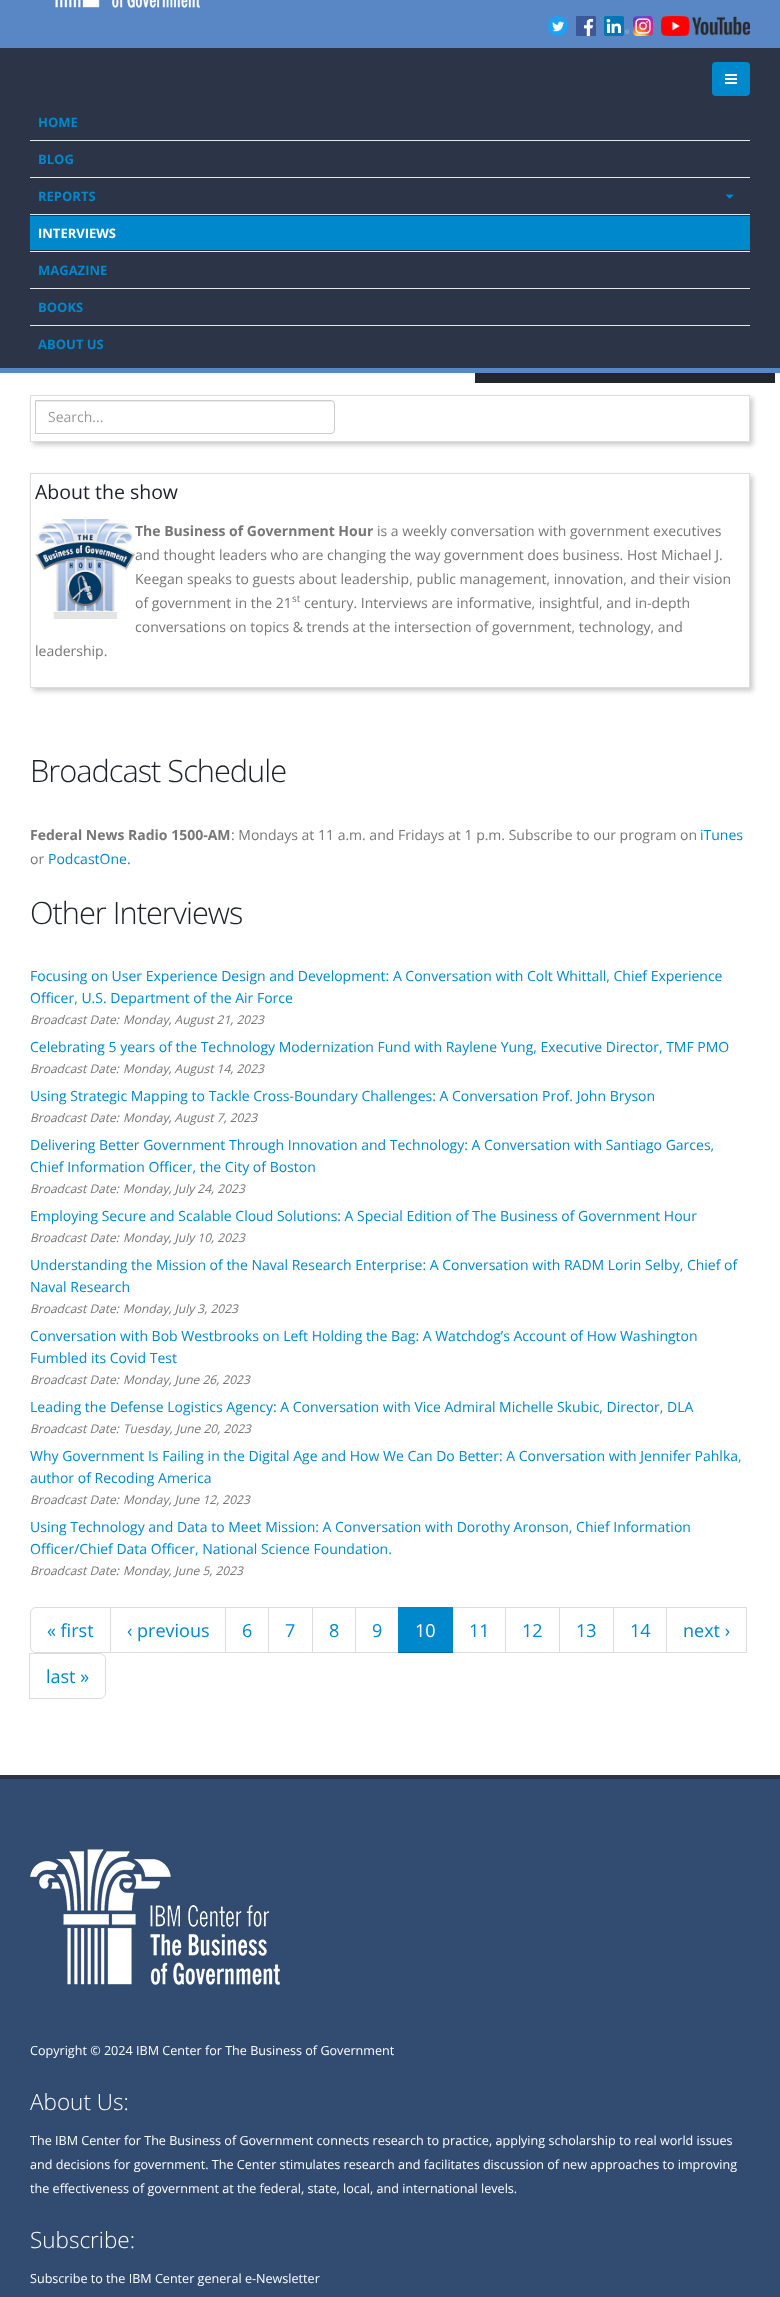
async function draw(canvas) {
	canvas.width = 780;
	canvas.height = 2297;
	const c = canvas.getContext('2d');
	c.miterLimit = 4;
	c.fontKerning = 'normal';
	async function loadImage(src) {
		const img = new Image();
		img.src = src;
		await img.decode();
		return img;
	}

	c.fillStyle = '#fff';
	c.fillRect(0, 0, 780, 2297);
	c.fillStyle = '#22272b';
	c.fillRect(475, 373, 300, 10);
	c.fillStyle = '#0000001a';
	c.filter = 'blur(1.5px)';
	c.beginPath();
	c.rect(0, -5, 780, 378);
	c.fill();
	c.filter = 'none';
	c.fillStyle = '#5987c5';
	c.fillRect(0, 0, 780, 373);
	c.drawImage(await loadImage('img1.png'), 55, 0, 145, 8);
	c.drawImage(await loadImage('img2.png'), 547, 16, 21, 20);
	c.drawImage(await loadImage('img3.png'), 576, 16, 20, 20);
	c.drawImage(await loadImage('img4.png'), 604, 16, 25, 20);
	c.drawImage(await loadImage('img5.png'), 633, 16, 20, 20);
	c.drawImage(await loadImage('img6.png'), 661, 16, 89, 20);
	c.fillStyle = '#2c3448';
	c.fillRect(0, 48, 780, 320);
	c.fillStyle = '#08c';
	c.beginPath();
	c.roundRect(712, 62, 38, 34, 4);
	c.fill();
	c.drawImage(await loadImage('img7.png'), 725, 74, 12, 10);
	c.fillStyle = '#e8e8e8';
	c.fillRect(30, 140, 720, 1);
	c.font = 'bold 13px Open Sans';
	c.fillStyle = '#08c';
	c.fillText('HOME', 38, 127);
	c.fillStyle = '#e8e8e8';
	c.fillRect(30, 177, 720, 1);
	c.fillStyle = '#08c';
	c.fillText('BLOG', 38, 164);
	c.fillStyle = '#e8e8e8';
	c.fillRect(30, 214, 720, 1);
	c.fillStyle = '#08c';
	c.fillText('REPORTS', 38, 201);
	c.drawImage(await loadImage('img8.png'), 726, 194, 8, 5);
	c.fillStyle = '#e8e8e8';
	c.fillRect(30, 251, 720, 1);
	c.fillStyle = '#08c';
	c.fillRect(30, 216, 720, 34);
	c.fillStyle = '#fff';
	c.fillText('INTERVIEWS', 38, 238);
	c.fillStyle = '#e8e8e8';
	c.fillRect(30, 288, 720, 1);
	c.fillStyle = '#08c';
	c.fillText('MAGAZINE', 38, 275);
	c.fillStyle = '#e8e8e8';
	c.fillRect(30, 325, 720, 1);
	c.fillStyle = '#08c';
	c.fillText('BOOKS', 38, 312);
	c.fillText('ABOUT US', 38, 349);
	c.save();
	c.beginPath();
	c.moveTo(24, 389);
	c.lineTo(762, 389);
	c.lineTo(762, 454);
	c.lineTo(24, 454);
	c.closePath();
	c.moveTo(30, 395);
	c.lineTo(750, 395);
	c.lineTo(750, 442);
	c.lineTo(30, 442);
	c.closePath();
	c.clip('evenodd');
	c.fillStyle = '#ccc';
	c.filter = 'blur(2.5px)';
	c.beginPath();
	c.rect(33, 398, 720, 47);
	c.fill();
	c.filter = 'none';
	c.restore();
	c.strokeStyle = '#ddd';
	c.strokeRect(30.5, 395.5, 719, 46);
	c.fillStyle = '#ececec';
	c.beginPath();
	c.moveTo(36, 402);
	c.lineTo(331, 402);
	c.bezierCurveTo(333, 402, 334, 403, 334, 405);
	c.bezierCurveTo(334, 403, 333, 401, 331, 401);
	c.lineTo(36, 401);
	c.closePath();
	c.fill();
	c.beginPath();
	c.roundRect(35.5, 400.5, 299, 33, [0, 3.5, 3.5, 0]);
	c.strokeStyle = '#ccc';
	c.stroke();
	c.font = '14px Open Sans';
	c.fillStyle = '#999';
	c.fillText('Search...', 48, 422);
	c.save();
	c.beginPath();
	c.moveTo(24, 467);
	c.lineTo(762, 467);
	c.lineTo(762, 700);
	c.lineTo(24, 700);
	c.closePath();
	c.moveTo(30, 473);
	c.lineTo(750, 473);
	c.lineTo(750, 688);
	c.lineTo(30, 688);
	c.closePath();
	c.clip('evenodd');
	c.fillStyle = '#ccc';
	c.filter = 'blur(2.5px)';
	c.beginPath();
	c.rect(33, 476, 720, 215);
	c.fill();
	c.filter = 'none';
	c.restore();
	c.strokeStyle = '#ddd';
	c.strokeRect(30.5, 473.5, 719, 214);
	c.font = '19.5px Open Sans';
	c.fillStyle = '#1d2127';
	c.fillText('About the show', 35, 499);
	c.drawImage(await loadImage('img9.png'), 35, 519, 100, 100);
	c.font = 'bold 14px Open Sans';
	c.fillStyle = '#777';
	c.fillText('The Business of Government Hour', 135, 536);
	c.font = '14px Open Sans';
	for (const [text, x, y] of [
		['is a weekly conversation with government executives', 377, 536],
		['and thought leaders who are changing the way government does business. Host Michael J.', 135, 560],
		['Keegan speaks to guests about leadership, public management, innovation, and their vision', 135, 584],
		['of government in the 21', 135, 608],
	]) {
		c.fillText(text, x, y);
	}
	c.font = '10px Open Sans';
	c.fillText('st', 292, 602);
	c.font = '14px Open Sans';
	for (const [text, x, y] of [
		['century. Interviews are informative, insightful, and in-depth', 304, 608],
		['conversations on topics & trends at the intersection of government, technology, and', 135, 632],
		['leadership.', 35, 656],
	]) {
		c.fillText(text, x, y);
	}
	c.letterSpacing = '-1px';
	c.font = '300 30.75px Open Sans';
	c.fillStyle = '#1d2127';
	c.fillText('Broadcast Schedule', 30, 782);
	c.letterSpacing = '0px';
	c.font = 'bold 14px Open Sans';
	c.fillStyle = '#777';
	c.fillText('Federal News Radio 1500-AM', 30, 840);
	c.font = '14px Open Sans';
	c.fillText(': Mondays at 11 a.m. and Fridays at 1 p.m. Subscribe to our program on', 231, 840);
	c.fillStyle = '#08c';
	c.fillText('iTunes', 700, 840);
	c.fillStyle = '#777';
	c.fillText('or', 30, 864);
	c.fillStyle = '#08c';
	c.fillText('PodcastOne.', 48, 864);
	c.letterSpacing = '-1px';
	c.font = '300 30.75px Open Sans';
	c.fillStyle = '#1d2127';
	c.fillText('Other Interviews', 30, 924);
	c.letterSpacing = '0px';
	c.font = '14px Open Sans';
	c.fillStyle = '#08c';
	c.fillText('Focusing on User Experience Design and Development: A Conversation with Colt Whittall, Chief Experience', 30, 981);
	c.fillText('Officer, U.S. Department of the Air Force', 30, 1003);
	c.font = 'italic 12px Open Sans';
	c.fillStyle = '#777';
	c.fillText('Broadcast Date:', 30, 1024);
	c.fillText('Monday, August 21, 2023', 123, 1024);
	c.font = '14px Open Sans';
	c.fillStyle = '#08c';
	c.fillText('Celebrating 5 years of the Technology Modernization Fund with Raylene Yung, Executive Director, TMF PMO', 30, 1052);
	c.font = 'italic 12px Open Sans';
	c.fillStyle = '#777';
	c.fillText('Broadcast Date:', 30, 1073);
	c.fillText('Monday, August 14, 2023', 123, 1073);
	c.font = '14px Open Sans';
	c.fillStyle = '#08c';
	c.fillText('Using Strategic Mapping to Tackle Cross-Boundary Challenges: A Conversation Prof. John Bryson', 30, 1101);
	c.font = 'italic 12px Open Sans';
	c.fillStyle = '#777';
	c.fillText('Broadcast Date:', 30, 1122);
	c.fillText('Monday, August 7, 2023', 123, 1122);
	c.font = '14px Open Sans';
	c.fillStyle = '#08c';
	c.fillText('Delivering Better Government Through Innovation and Technology: A Conversation with Santiago Garces,', 30, 1150);
	c.fillText('Chief Information Officer, the City of Boston', 30, 1172);
	c.font = 'italic 12px Open Sans';
	c.fillStyle = '#777';
	c.fillText('Broadcast Date:', 30, 1193);
	c.fillText('Monday, July 24, 2023', 123, 1193);
	c.font = '14px Open Sans';
	c.fillStyle = '#08c';
	c.fillText('Employing Secure and Scalable Cloud Solutions: A Special Edition of The Business of Government Hour', 30, 1221);
	c.font = 'italic 12px Open Sans';
	c.fillStyle = '#777';
	c.fillText('Broadcast Date:', 30, 1242);
	c.fillText('Monday, July 10, 2023', 123, 1242);
	c.font = '14px Open Sans';
	c.fillStyle = '#08c';
	c.fillText('Understanding the Mission of the Naval Research Enterprise: A Conversation with RADM Lorin Selby, Chief of', 30, 1270);
	c.fillText('Naval Research', 30, 1292);
	c.font = 'italic 12px Open Sans';
	c.fillStyle = '#777';
	c.fillText('Broadcast Date:', 30, 1313);
	c.fillText('Monday, July 3, 2023', 123, 1313);
	c.font = '14px Open Sans';
	c.fillStyle = '#08c';
	c.fillText('Conversation with Bob Westbrooks on Left Holding the Bag: A Watchdog’s Account of How Washington', 30, 1341);
	c.fillText('Fumbled its Covid Test', 30, 1363);
	c.font = 'italic 12px Open Sans';
	c.fillStyle = '#777';
	c.fillText('Broadcast Date:', 30, 1384);
	c.fillText('Monday, June 26, 2023', 123, 1384);
	c.font = '14px Open Sans';
	c.fillStyle = '#08c';
	c.fillText('Leading the Defense Logistics Agency: A Conversation with Vice Admiral Michelle Skubic, Director, DLA', 30, 1412);
	c.font = 'italic 12px Open Sans';
	c.fillStyle = '#777';
	c.fillText('Broadcast Date:', 30, 1433);
	c.fillText('Tuesday, June 20, 2023', 123, 1433);
	c.font = '14px Open Sans';
	c.fillStyle = '#08c';
	c.fillText('Why Government Is Failing in the Digital Age and How We Can Do Better: A Conversation with Jennifer Pahlka,', 30, 1461);
	c.fillText('author of Recoding America', 30, 1483);
	c.font = 'italic 12px Open Sans';
	c.fillStyle = '#777';
	c.fillText('Broadcast Date:', 30, 1504);
	c.fillText('Monday, June 12, 2023', 123, 1504);
	c.font = '14px Open Sans';
	c.fillStyle = '#08c';
	c.fillText('Using Technology and Data to Meet Mission: A Conversation with Dorothy Aronson, Chief Information', 30, 1532);
	c.fillText('Officer/Chief Data Officer, National Science Foundation.', 30, 1554);
	c.font = 'italic 12px Open Sans';
	c.fillStyle = '#777';
	c.fillText('Broadcast Date:', 30, 1575);
	c.fillText('Monday, June 5, 2023', 123, 1575);
	c.beginPath();
	c.roundRect(30.5, 1607.5, 80, 45, [5.5, 0, 0, 5.5]);
	c.stroke();
	c.font = '18px Open Sans';
	c.fillStyle = '#08c';
	c.fillText('« first', 47, 1637);
	c.strokeRect(110.5, 1607.5, 115, 45);
	c.fillText('‹ previous', 127, 1637);
	c.strokeRect(225.5, 1607.5, 43, 45);
	c.fillText('6', 242, 1637);
	c.strokeRect(268.5, 1607.5, 44, 45);
	c.fillText('7', 285, 1637);
	c.strokeRect(312.5, 1607.5, 43, 45);
	c.fillText('8', 329, 1637);
	c.strokeRect(355.5, 1607.5, 43, 45);
	c.fillText('9', 372, 1637);
	c.strokeRect(452.5, 1607.5, 53, 45);
	for (const [x, y, w, h, color] of [
		[399, 1607, 54, 45, '#08c'],
		[398, 1652, 55, 1, '#069'],
		[398, 1607, 1, 46, '#08c'],
	]) {
		c.fillStyle = color;
		c.fillRect(x, y, w, h);
	}
	c.fillStyle = '#fff';
	c.fillText('10', 415, 1637);
	c.fillStyle = '#08c';
	c.fillText('11', 469, 1637);
	c.strokeRect(505.5, 1607.5, 54, 45);
	c.fillText('12', 522, 1637);
	c.strokeRect(559.5, 1607.5, 54, 45);
	c.fillText('13', 576, 1637);
	c.strokeRect(613.5, 1607.5, 53, 45);
	c.fillText('14', 630, 1637);
	c.strokeRect(666.5, 1607.5, 80, 45);
	c.fillText('next ›', 683, 1637);
	c.beginPath();
	c.roundRect(29.5, 1653.5, 76, 45, [0, 5.5, 5.5, 0]);
	c.stroke();
	c.fillText('last »', 46, 1683);
	c.fillStyle = '#314b71';
	c.fillRect(0, 1779, 780, 518);
	c.fillStyle = '#2c3448';
	c.fillRect(0, 1775, 780, 4);
	c.drawImage(await loadImage('img10.png'), 30, 1849, 250, 136);
	c.font = '12.6px Open Sans';
	c.fillStyle = '#fff';
	c.fillText('Copyright © 2024 IBM Center for The Business of Government', 30, 2055);
	c.font = '300 22.5px Open Sans';
	c.fillText('About Us:', 30, 2110);
	c.font = '12.6px Open Sans';
	for (const [text, x, y] of [
		['The IBM Center for The Business of Government connects research to practice, applying scholarship to real world issues', 30, 2145],
		['and decisions for government. The Center stimulates research and facilitates discussion of new approaches to improving', 30, 2169],
		['the effectiveness of government at the federal, state, local, and international levels.', 30, 2193],
	]) {
		c.fillText(text, x, y);
	}
	c.font = '300 22.5px Open Sans';
	c.fillText('Subscribe:', 30, 2248);
	c.font = '12.6px Open Sans';
	c.fillText('Subscribe to the IBM Center general e-Newsletter', 30, 2283);
}

draw(document.querySelector('canvas'));
